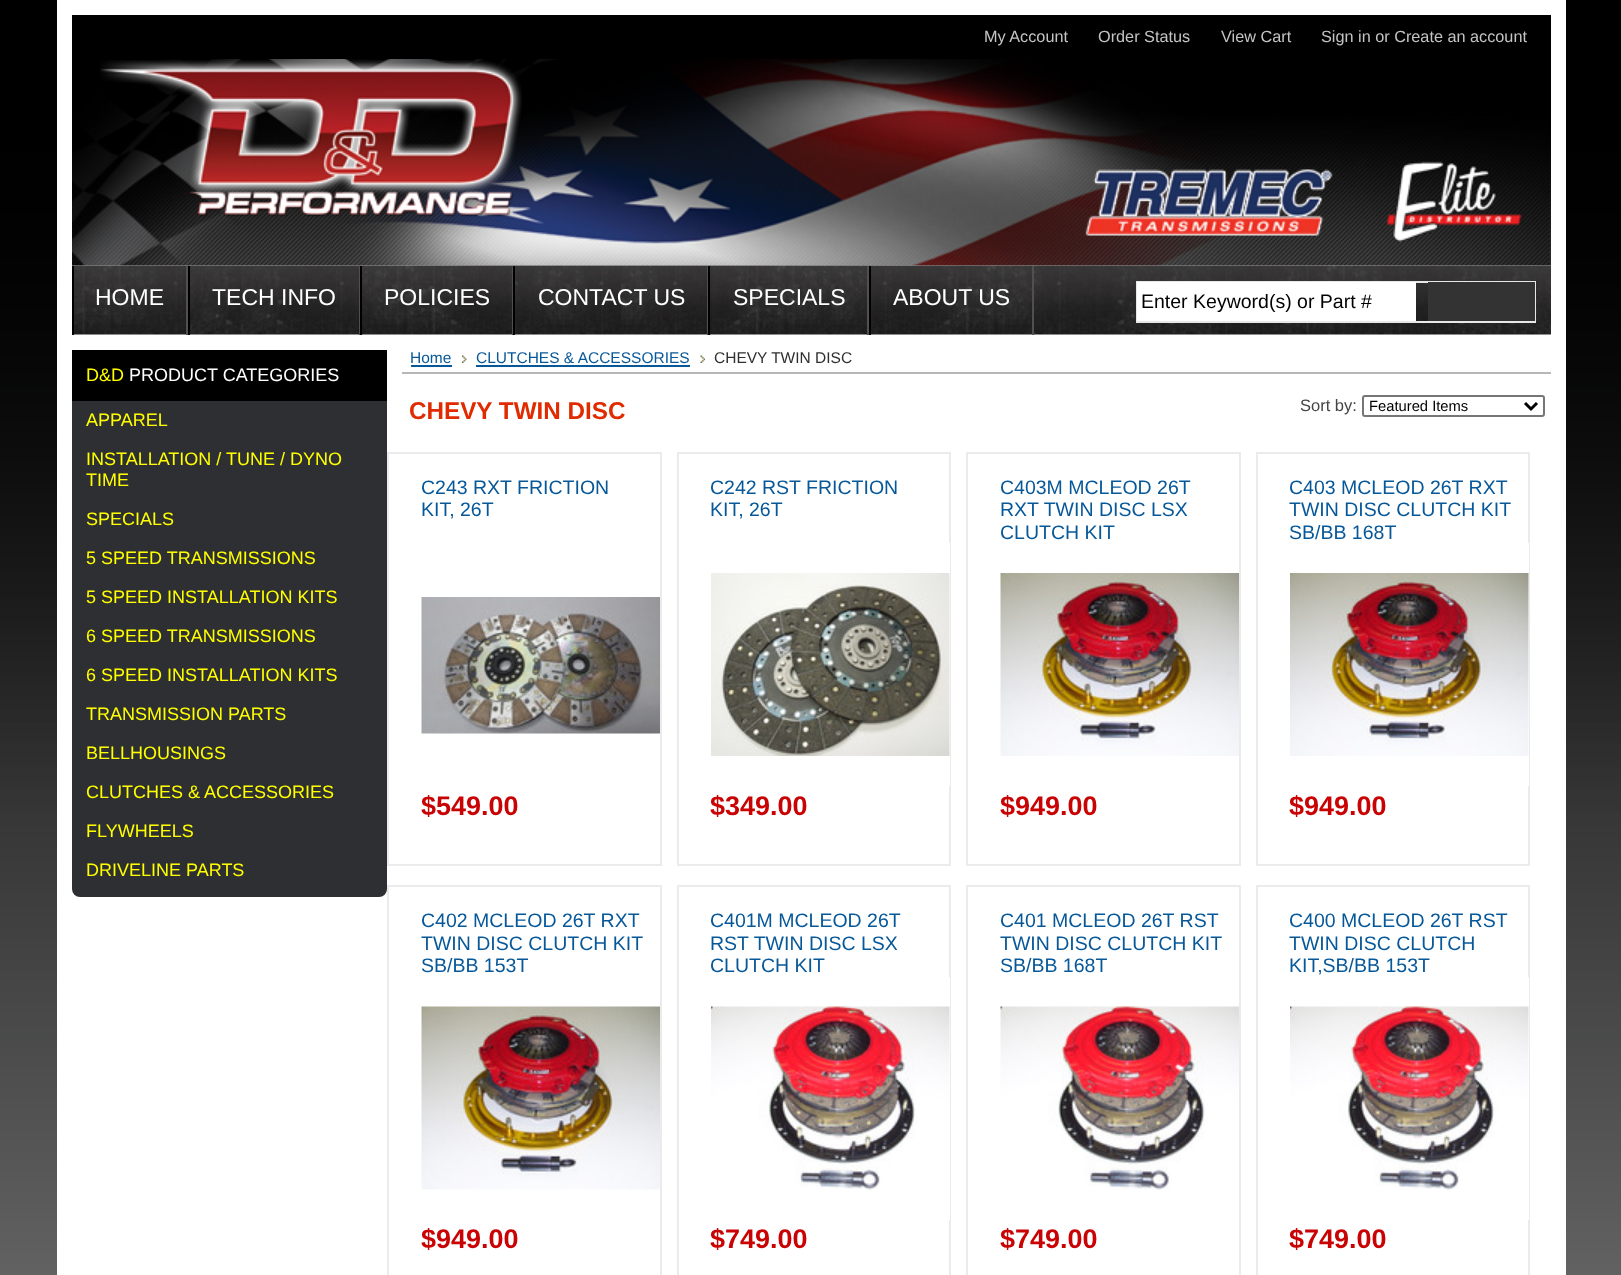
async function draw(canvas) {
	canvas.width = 1621;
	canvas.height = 1275;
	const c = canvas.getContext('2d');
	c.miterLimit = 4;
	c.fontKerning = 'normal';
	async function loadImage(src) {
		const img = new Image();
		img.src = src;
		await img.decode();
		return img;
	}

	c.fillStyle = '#fff';
	c.fillRect(0, 0, 1621, 1275);
	c.drawImage(await loadImage('img1.png'), 0, 0, 1621, 1275);
	c.fillRect(57, 0, 1509, 1275);
	c.fillStyle = '#000';
	c.fillRect(72, 15, 1479, 44);
	c.font = '16.25px Liberation Sans';
	c.fillStyle = '#c4c4c4';
	for (const [text, x, y] of [
		['My Account', 984, 42],
		['Order Status', 1098, 42],
		['View Cart', 1221, 42],
		['Sign in or Create an account', 1321, 42],
	]) {
		c.fillText(text, x, y);
	}
	c.drawImage(await loadImage('img2.png'), 72, 59, 1479, 207);
	c.drawImage(await loadImage('img3.png'), 100, 60, 422, 157);
	c.drawImage(await loadImage('img4.png'), 72, 265, 1479, 70);
	c.fillStyle = '#514f4f';
	c.fillRect(186, 266, 2, 69);
	c.fillStyle = '#000';
	c.fillRect(72, 266, 2, 69);
	c.font = '23px Liberation Sans';
	c.fillStyle = '#fff';
	c.fillText('HOME', 95, 305);
	c.fillStyle = '#514f4f';
	c.fillRect(359, 266, 1, 69);
	c.fillStyle = '#000';
	c.fillRect(188, 266, 2, 69);
	c.fillStyle = '#fff';
	c.fillText('TECH INFO', 212, 305);
	c.fillStyle = '#514f4f';
	c.fillRect(512, 266, 1, 69);
	c.fillStyle = '#000';
	c.fillRect(360, 266, 2, 69);
	c.fillStyle = '#fff';
	c.fillText('POLICIES', 384, 305);
	c.fillStyle = '#514f4f';
	c.fillRect(707, 266, 1, 69);
	c.fillStyle = '#000';
	c.fillRect(513, 266, 2, 69);
	c.fillStyle = '#fff';
	c.fillText('CONTACT US', 538, 305);
	c.fillStyle = '#514f4f';
	c.fillRect(867, 266, 2, 69);
	c.fillStyle = '#000';
	c.fillRect(708, 266, 2, 69);
	c.fillStyle = '#fff';
	c.fillText('SPECIALS', 733, 305);
	c.fillStyle = '#514f4f';
	c.fillRect(1032, 266, 2, 69);
	c.fillStyle = '#000';
	c.fillRect(869, 266, 2, 69);
	c.fillStyle = '#fff';
	c.fillText('ABOUT US', 893, 305);
	c.strokeStyle = '#e7e8e7';
	c.lineWidth = 2;
	c.strokeRect(1137, 282, 398, 40);
	c.fillRect(1137, 282, 279, 39);
	c.font = '19.5px Liberation Sans';
	c.fillStyle = '#000';
	c.fillText('Enter Keyword(s) or Part #', 1141, 308);
	c.fillStyle = '#333';
	c.fillRect(1428, 282, 107, 39);
	c.fillStyle = '#2d2f32';
	c.beginPath();
	c.roundRect(72, 350, 315, 547, [0, 0, 8, 8]);
	c.fill();
	c.fillStyle = '#000';
	c.fillRect(72, 350, 315, 51);
	c.font = '18px Liberation Sans';
	c.fillStyle = '#ff0';
	c.fillText('D&D', 86, 381);
	c.fillStyle = '#fff';
	c.fillText('PRODUCT CATEGORIES', 129, 381);
	c.fillStyle = '#ff0';
	for (const [text, x, y] of [
		['APPAREL', 86, 426],
		['INSTALLATION / TUNE / DYNO', 86, 465],
		['TIME', 86, 486],
		['SPECIALS', 86, 525],
		['5 SPEED TRANSMISSIONS', 86, 564],
		['5 SPEED INSTALLATION KITS', 86, 603],
		['6 SPEED TRANSMISSIONS', 86, 642],
		['6 SPEED INSTALLATION KITS', 86, 681],
		['TRANSMISSION PARTS', 86, 720],
		['BELLHOUSINGS', 86, 759],
		['CLUTCHES & ACCESSORIES', 86, 798],
		['FLYWHEELS', 86, 837],
		['DRIVELINE PARTS', 86, 876],
	]) {
		c.fillText(text, x, y);
	}
	c.fillStyle = '#b7b7b7';
	c.fillRect(402, 372, 1149, 2);
	c.font = '15.5px Liberation Sans';
	c.fillStyle = '#075899';
	c.fillText('Home', 410, 363);
	c.fillRect(411, 365, 41, 2);
	c.drawImage(await loadImage('img5.png'), 462, 355, 5, 8);
	c.fillText('CLUTCHES & ACCESSORIES', 476, 363);
	c.fillRect(476, 365, 214, 2);
	c.drawImage(await loadImage('img6.png'), 700, 355, 5, 8);
	c.fillStyle = '#2f2f2f';
	c.fillText('CHEVY TWIN DISC', 714, 363);
	c.font = 'bold 24.25px Liberation Sans';
	c.fillStyle = '#e02b01';
	c.fillText('CHEVY TWIN DISC', 409, 419);
	c.font = '16.5px Liberation Sans';
	c.fillStyle = '#444';
	c.fillText('Sort by:', 1300, 411);
	c.beginPath();
	c.roundRect(1363, 396, 181, 20, 2);
	c.strokeStyle = '#767676';
	c.stroke();
	c.beginPath();
	c.moveTo(1525, 403);
	c.lineTo(1531, 409);
	c.lineTo(1537, 403);
	c.strokeStyle = '#000';
	c.lineWidth = 3;
	c.stroke();
	c.font = '14.75px Liberation Sans';
	c.fillStyle = '#000';
	c.fillText('Featured Items', 1369, 411);
	c.strokeStyle = '#ebebeb';
	c.lineWidth = 2;
	c.strokeRect(388, 453, 273, 412);
	c.font = '19.5px Liberation Sans';
	c.fillStyle = '#075899';
	c.fillText('C243 RXT FRICTION', 421, 494);
	c.fillText('KIT, 26T', 421, 516);
	c.drawImage(await loadImage('img7.png'), 421, 597, 239, 137);
	c.font = 'bold 27px Liberation Sans';
	c.fillStyle = '#c90303';
	c.fillText('$549.00', 421, 815);
	c.strokeRect(678, 453, 272, 412);
	c.font = '19.5px Liberation Sans';
	c.fillStyle = '#075899';
	c.fillText('C242 RST FRICTION', 710, 494);
	c.fillText('KIT, 26T', 710, 516);
	c.fillStyle = '#fff';
	c.fillRect(949, 543, 1, 243);
	c.drawImage(await loadImage('img8.png'), 711, 573, 239, 183);
	c.font = 'bold 27px Liberation Sans';
	c.fillStyle = '#c90303';
	c.fillText('$349.00', 710, 815);
	c.strokeRect(967, 453, 273, 412);
	c.font = '19.5px Liberation Sans';
	c.fillStyle = '#075899';
	for (const [text, x, y] of [
		['C403M MCLEOD 26T', 1000, 494],
		['RXT TWIN DISC LSX', 1000, 516],
		['CLUTCH KIT', 1000, 539],
	]) {
		c.fillText(text, x, y);
	}
	c.drawImage(await loadImage('img9.png'), 1000, 573, 239, 183);
	c.font = 'bold 27px Liberation Sans';
	c.fillStyle = '#c90303';
	c.fillText('$949.00', 1000, 815);
	c.strokeRect(1257, 453, 272, 412);
	c.font = '19.5px Liberation Sans';
	c.fillStyle = '#075899';
	for (const [text, x, y] of [
		['C403 MCLEOD 26T RXT', 1289, 494],
		['TWIN DISC CLUTCH KIT', 1289, 516],
		['SB/BB 168T', 1289, 539],
	]) {
		c.fillText(text, x, y);
	}
	c.fillStyle = '#fff';
	c.fillRect(1528, 543, 1, 243);
	c.drawImage(await loadImage('img10.png'), 1290, 573, 239, 183);
	c.font = 'bold 27px Liberation Sans';
	c.fillStyle = '#c90303';
	c.fillText('$949.00', 1289, 815);
	c.strokeRect(388, 886, 273, 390);
	c.font = '19.5px Liberation Sans';
	c.fillStyle = '#075899';
	for (const [text, x, y] of [
		['C402 MCLEOD 26T RXT', 421, 927],
		['TWIN DISC CLUTCH KIT', 421, 950],
		['SB/BB 153T', 421, 972],
	]) {
		c.fillText(text, x, y);
	}
	c.drawImage(await loadImage('img11.png'), 421, 1006, 239, 184);
	c.font = 'bold 27px Liberation Sans';
	c.fillStyle = '#c90303';
	c.fillText('$949.00', 421, 1248);
	c.strokeRect(678, 886, 272, 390);
	c.font = '19.5px Liberation Sans';
	c.fillStyle = '#075899';
	for (const [text, x, y] of [
		['C401M MCLEOD 26T', 710, 927],
		['RST TWIN DISC LSX', 710, 950],
		['CLUTCH KIT', 710, 972],
	]) {
		c.fillText(text, x, y);
	}
	c.fillStyle = '#fff';
	c.fillRect(949, 977, 1, 243);
	c.drawImage(await loadImage('img12.png'), 711, 1006, 239, 184);
	c.font = 'bold 27px Liberation Sans';
	c.fillStyle = '#c90303';
	c.fillText('$749.00', 710, 1248);
	c.strokeRect(967, 886, 273, 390);
	c.font = '19.5px Liberation Sans';
	c.fillStyle = '#075899';
	for (const [text, x, y] of [
		['C401 MCLEOD 26T RST', 1000, 927],
		['TWIN DISC CLUTCH KIT', 1000, 950],
		['SB/BB 168T', 1000, 972],
	]) {
		c.fillText(text, x, y);
	}
	c.drawImage(await loadImage('img13.png'), 1000, 1006, 239, 184);
	c.font = 'bold 27px Liberation Sans';
	c.fillStyle = '#c90303';
	c.fillText('$749.00', 1000, 1248);
	c.strokeRect(1257, 886, 272, 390);
	c.font = '19.5px Liberation Sans';
	c.fillStyle = '#075899';
	for (const [text, x, y] of [
		['C400 MCLEOD 26T RST', 1289, 927],
		['TWIN DISC CLUTCH', 1289, 950],
		['KIT,SB/BB 153T', 1289, 972],
	]) {
		c.fillText(text, x, y);
	}
	c.fillStyle = '#fff';
	c.fillRect(1528, 977, 1, 243);
	c.drawImage(await loadImage('img14.png'), 1290, 1006, 239, 184);
	c.font = 'bold 27px Liberation Sans';
	c.fillStyle = '#c90303';
	c.fillText('$749.00', 1289, 1248);
}

draw(document.querySelector('canvas'));
